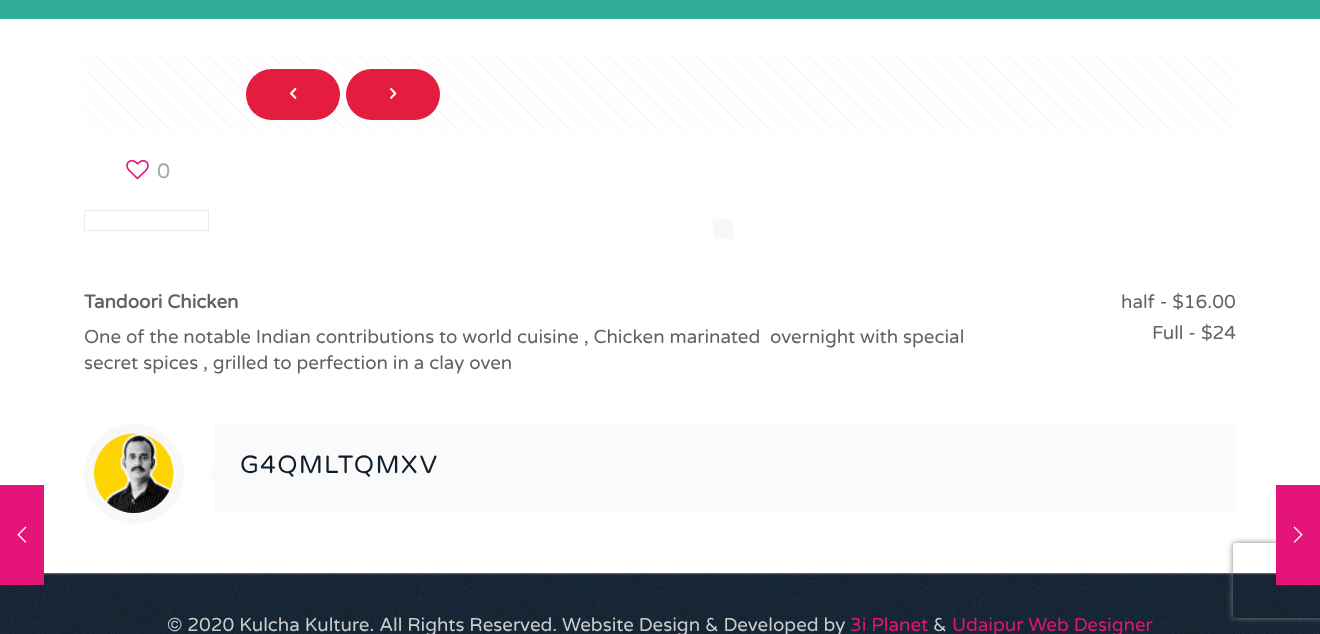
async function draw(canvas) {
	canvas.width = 1320;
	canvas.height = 634;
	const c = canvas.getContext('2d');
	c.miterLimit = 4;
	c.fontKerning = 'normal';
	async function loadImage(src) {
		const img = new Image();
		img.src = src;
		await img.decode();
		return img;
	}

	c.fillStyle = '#fff';
	c.fillRect(0, 0, 1320, 634);
	c.drawImage(await loadImage('img7.png'), 0, 573, 1320, 61);
	c.fillStyle = '#e41478';
	c.fillRect(0, 485, 44, 100);
	c.drawImage(await loadImage('img1.png'), 17, 526, 10, 17);
	c.fillStyle = '#32ae98';
	c.fillRect(0, 0, 1320, 19);
	c.drawImage(await loadImage('img2.png'), 84, 56, 1152, 76);
	c.fillStyle = '#e41d3e';
	c.beginPath();
	c.roundRect(246, 69, 94, 51, 25.5);
	c.fill();
	c.drawImage(await loadImage('img3.png'), 290, 88, 7, 11);
	c.beginPath();
	c.roundRect(346, 69, 94, 51, 25.5);
	c.fill();
	c.drawImage(await loadImage('img4.png'), 390, 88, 7, 11);
	c.drawImage(await loadImage('img5.png'), 126, 160, 23, 20);
	c.font = '21px Varela Round';
	c.fillStyle = '#a8a8a8';
	c.fillText('0', 157, 178);
	c.strokeStyle = '#ebebeb';
	c.strokeRect(84.5, 210.5, 124, 20);
	c.fillStyle = '#f8f8f8';
	c.fillRect(713, 219, 20, 20);
	c.font = 'bold 18.75px Varela Round';
	c.fillStyle = '#626262';
	c.fillText('Tandoori Chicken', 84, 308);
	c.font = '18.75px Varela Round';
	for (const [text, x, y] of [
		['half - $16.00', 1121, 308],
		['Full - $24', 1152, 339],
		['One of the notable Indian contributions to world cuisine , Chicken marinated  overnight with special', 84, 343],
		['secret spices , grilled to perfection in a clay oven', 84, 369],
	]) {
		c.fillText(text, x, y);
	}
	c.beginPath();
	c.arc(134, 474, 45, 0, 2 * Math.PI);
	c.strokeStyle = '#f8f8f8';
	c.lineWidth = 10;
	c.stroke();
	c.drawImage(await loadImage('img6.png'), 93, 433, 81, 81);
	c.fillStyle = '#fafafa';
	c.fillRect(215, 424, 1021, 89);
	c.beginPath();
	c.moveTo(215, 467.5);
	c.lineTo(215, 482.5);
	c.lineTo(207.5, 475);
	c.closePath();
	c.fill();
	c.letterSpacing = '1.25px';
	c.font = '25px Varela Round';
	c.fillStyle = '#101d2b';
	c.fillText('G4QMLTQMXV', 240, 473);
	c.fillStyle = '#ffffff1a';
	c.fillRect(44, 574, 1232, 1);
	c.letterSpacing = '0px';
	c.font = '18.75px Varela Round';
	c.fillStyle = '#ccc';
	c.fillText('© 2020 Kulcha Kulture. All Rights Reserved. Website Design & Developed by', 167, 631);
	c.fillStyle = '#e41478';
	c.fillText('3i Planet', 850, 631);
	c.fillStyle = '#ccc';
	c.fillText('&', 933, 631);
	c.fillStyle = '#e41478';
	c.fillText('Udaipur Web Designer', 952, 631);
	c.save();
	c.beginPath();
	c.moveTo(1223, 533);
	c.lineTo(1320, 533);
	c.lineTo(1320, 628);
	c.lineTo(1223, 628);
	c.closePath();
	c.moveTo(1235.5, 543);
	c.lineTo(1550.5, 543);
	c.bezierCurveTo(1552, 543, 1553, 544, 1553, 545.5);
	c.lineTo(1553, 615.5);
	c.bezierCurveTo(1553, 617, 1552, 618, 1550.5, 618);
	c.lineTo(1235.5, 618);
	c.bezierCurveTo(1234, 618, 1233, 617, 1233, 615.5);
	c.lineTo(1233, 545.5);
	c.bezierCurveTo(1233, 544, 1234, 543, 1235.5, 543);
	c.closePath();
	c.clip('evenodd');
	c.fillStyle = '#808080';
	c.filter = 'blur(3px)';
	c.beginPath();
	c.roundRect(1233, 543, 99, 75, 2.5);
	c.fill();
	c.filter = 'none';
	c.restore();
	c.fillRect(1276, 485, 44, 100);
	c.drawImage(await loadImage('img8.png'), 1293, 526, 10, 17);
}

draw(document.querySelector('canvas'));
